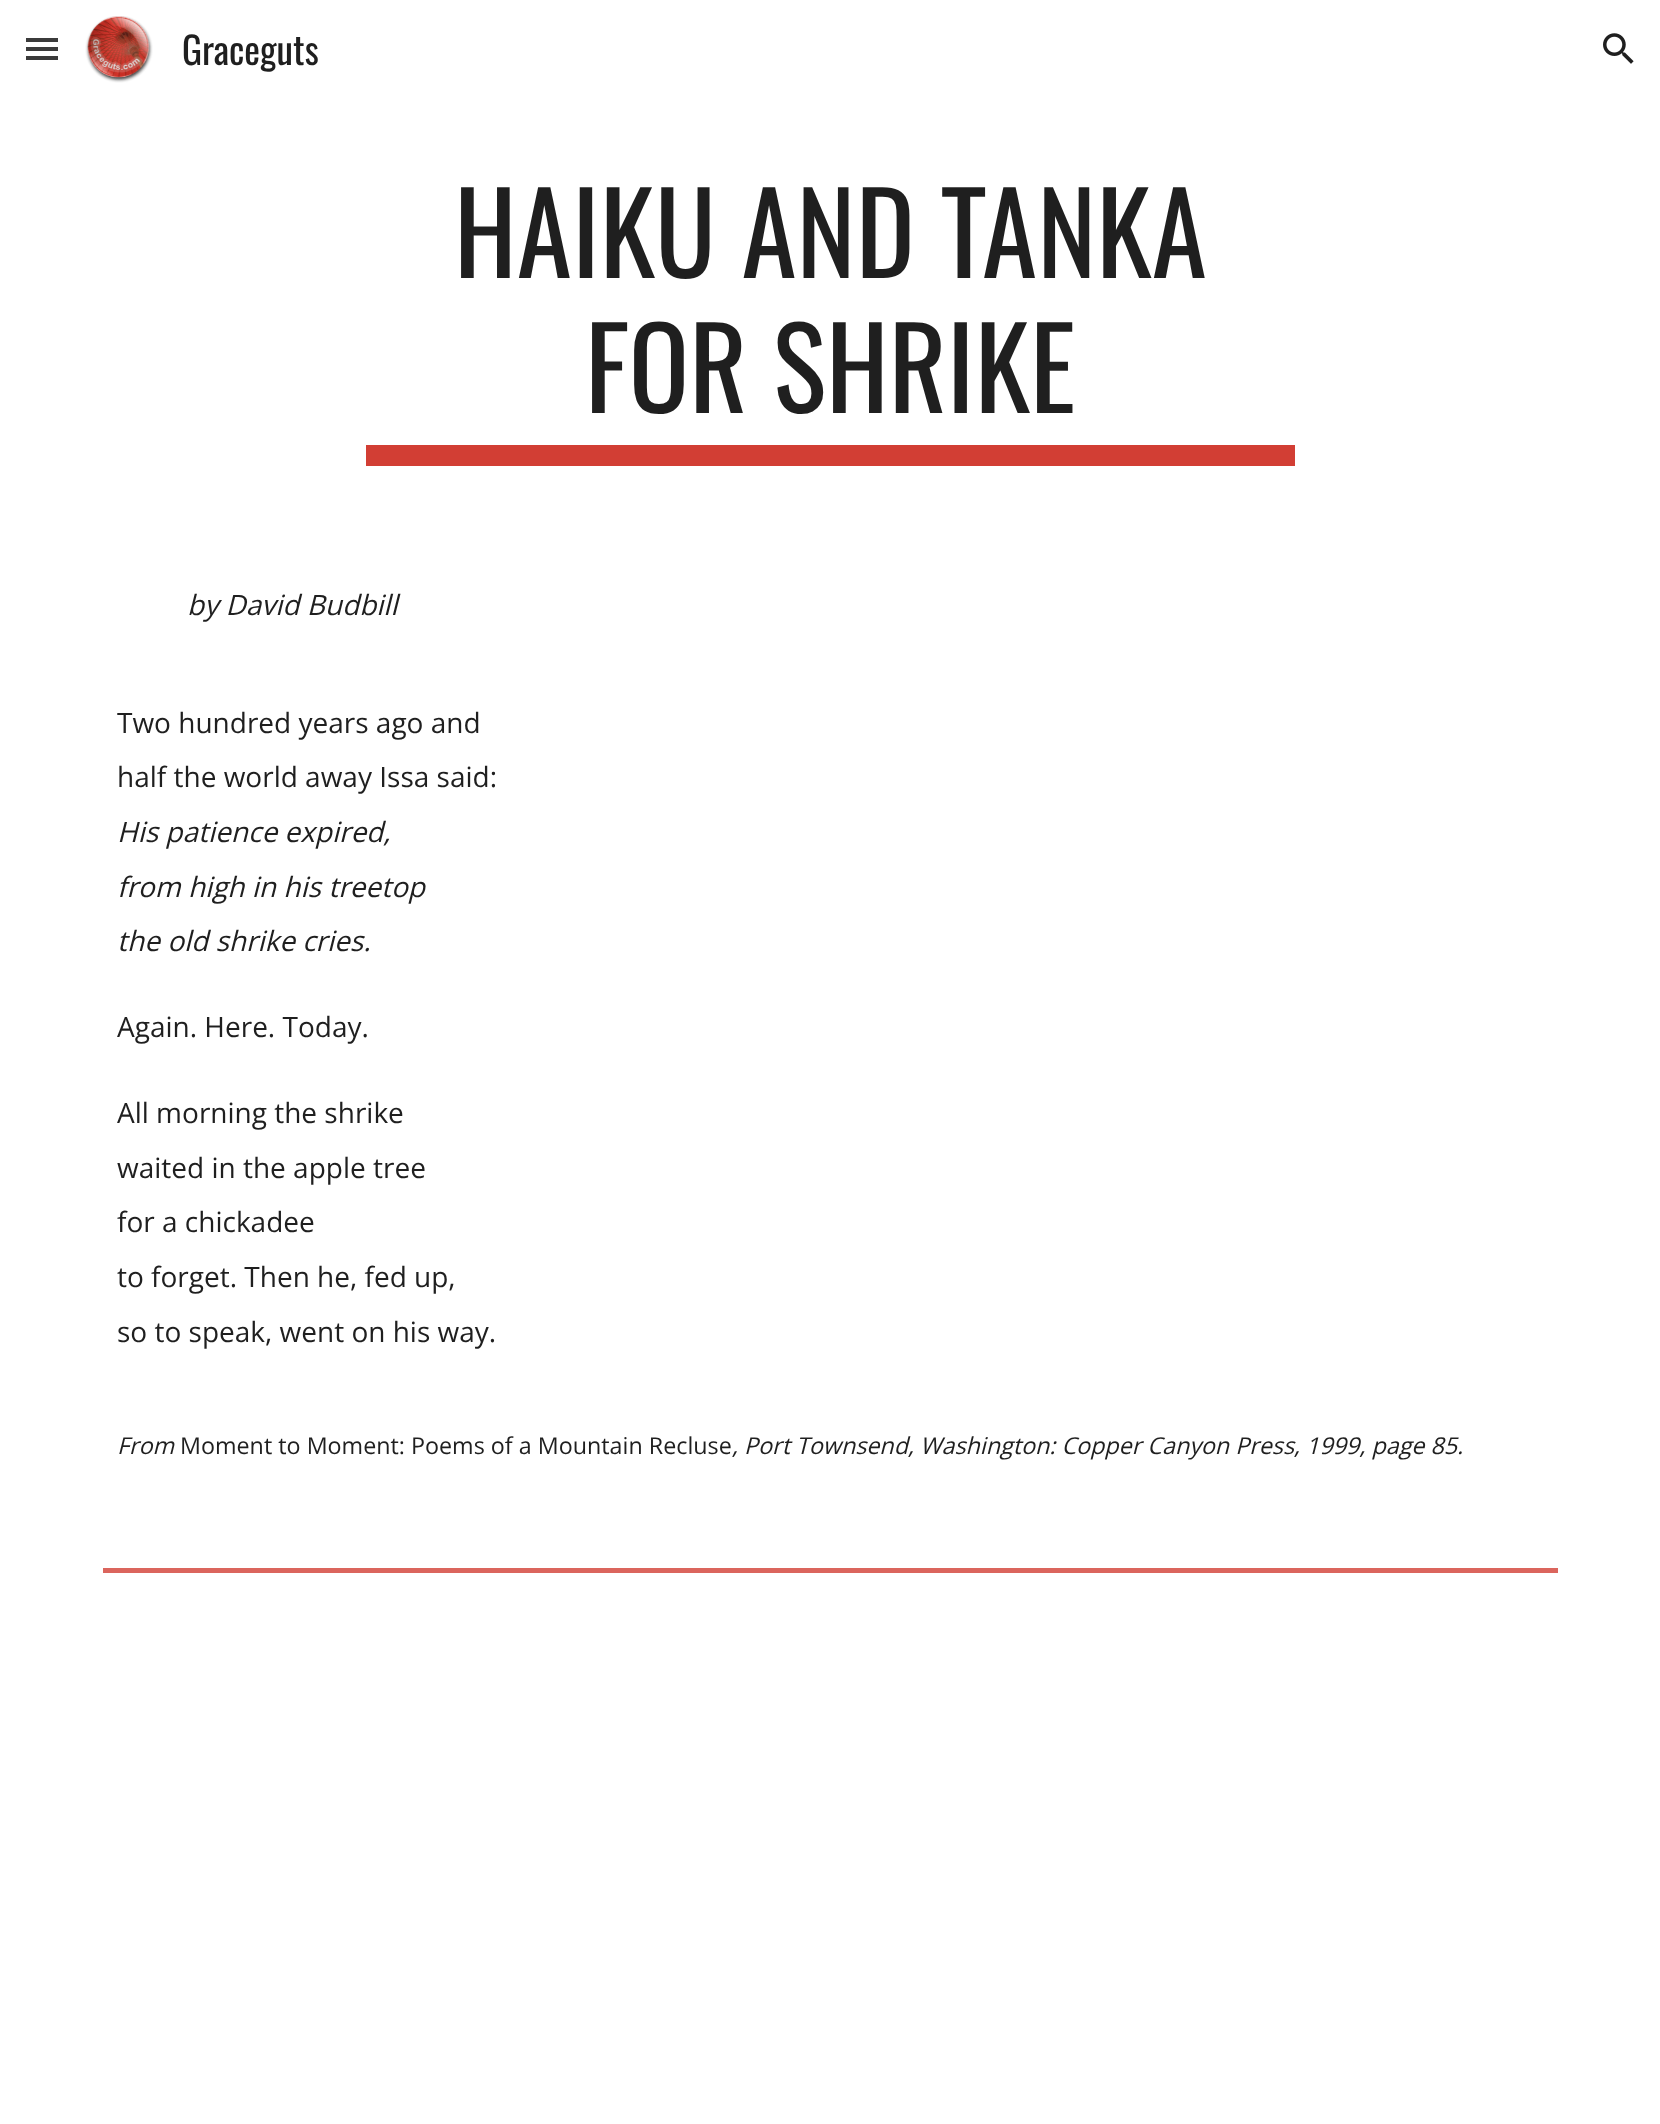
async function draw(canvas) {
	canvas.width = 1660;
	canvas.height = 2124;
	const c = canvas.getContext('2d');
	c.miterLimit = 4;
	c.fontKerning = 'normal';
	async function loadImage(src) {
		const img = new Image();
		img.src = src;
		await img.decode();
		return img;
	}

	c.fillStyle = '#fff';
	c.fillRect(0, 0, 1660, 2124);
	for (const [x, y, w, h, color] of [
		[26, 38, 32, 4, '#3b3b3b'],
		[26, 47, 32, 4, '#3b3b3b'],
		[26, 56, 32, 4, '#3b3b3b'],
	]) {
		c.fillStyle = color;
		c.fillRect(x, y, w, h);
	}
	c.drawImage(await loadImage('img1.png'), 85, 16, 68, 67);
	c.font = '37.5px Oswald';
	c.fillStyle = '#1f1f1f';
	c.fillText('Graceguts', 182, 65);
	c.drawImage(await loadImage('img2.png'), 1603, 33, 31, 31);
	c.font = '112px Oswald';
	c.fillText('HAIKU AND TANKA', 454, 278);
	c.fillText('FOR SHRIKE', 585, 413);
	c.fillStyle = '#d23e34';
	c.fillRect(366, 445, 929, 21);
	c.font = 'italic 28px Open Sans';
	c.fillStyle = '#1f1f1f';
	c.fillText('by David Budbill', 187, 615);
	c.font = '28px Open Sans';
	c.fillText('Two hundred years ago and', 117, 733);
	c.fillText('half the world away Issa said:', 117, 787);
	c.font = 'italic 28px Open Sans';
	for (const [text, x, y] of [
		['His patience expired,', 117, 842],
		['from high in his treetop', 117, 897],
		['the old shrike cries.', 117, 951],
	]) {
		c.fillText(text, x, y);
	}
	c.font = '28px Open Sans';
	for (const [text, x, y] of [
		['Again. Here. Today.', 117, 1037],
		['All morning the shrike', 117, 1123],
		['waited in the apple tree', 117, 1178],
		['for a chickadee', 117, 1232],
		['to forget. Then he, fed up,', 117, 1287],
		['so to speak, went on his way.', 117, 1342],
	]) {
		c.fillText(text, x, y);
	}
	c.font = 'italic 23.3px Open Sans';
	c.fillText('From', 117, 1454);
	c.font = '23.3px Open Sans';
	c.fillText('Moment to Moment: Poems of a Mountain Recluse', 180, 1454);
	c.font = 'italic 23.3px Open Sans';
	c.fillText(', Port Townsend, Washington: Copper Canyon Press, 1999, page 85.', 732, 1454);
	c.fillStyle = '#db655d';
	c.fillRect(103, 1568, 1455, 5);
}

draw(document.querySelector('canvas'));
